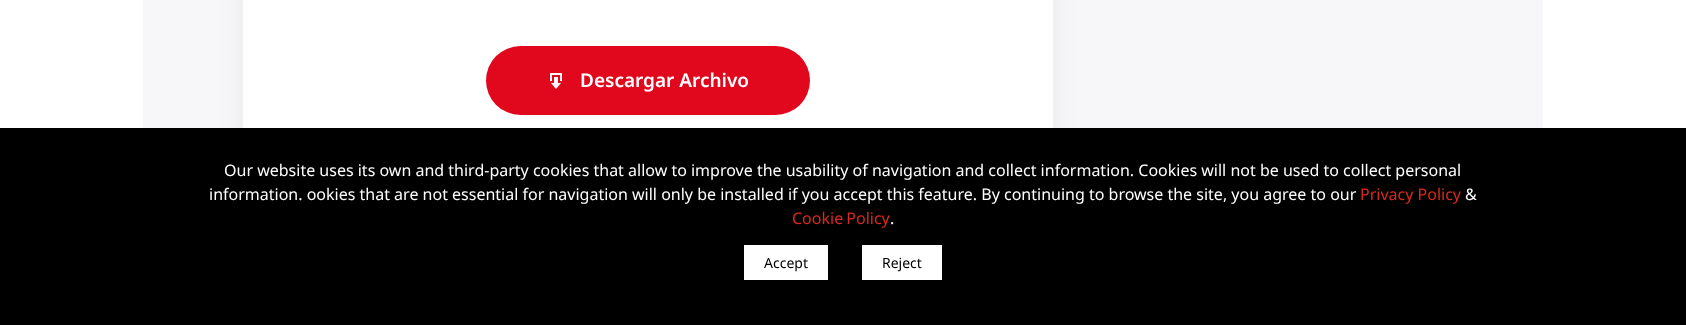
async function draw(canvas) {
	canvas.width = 1686;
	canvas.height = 325;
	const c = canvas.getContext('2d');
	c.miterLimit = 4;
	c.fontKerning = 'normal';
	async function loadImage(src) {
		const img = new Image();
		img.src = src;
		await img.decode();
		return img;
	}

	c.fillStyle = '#fff';
	c.fillRect(0, 0, 1686, 325);
	c.fillStyle = '#f7f7f9';
	c.fillRect(143, 0, 1400, 128);
	c.fillStyle = '#0000000d';
	c.filter = 'blur(15px)';
	c.beginPath();
	c.roundRect(243, -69, 810, 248, 24);
	c.fill();
	c.filter = 'none';
	c.fillStyle = '#fff';
	c.fillRect(243, 0, 810, 128);
	c.fillStyle = '#e1081d';
	c.beginPath();
	c.roundRect(486, 46, 324, 69, 34.5);
	c.fill();
	c.drawImage(await loadImage('img1.png'), 550, 73, 12, 16);
	c.font = '600 19px Noto Sans';
	c.fillStyle = '#fff';
	c.fillText('Descargar Archivo', 580, 87);
	c.fillStyle = '#000';
	c.fillRect(0, 128, 1686, 197);
	c.font = '16px Noto Sans';
	c.fillStyle = '#fff';
	c.fillText('Our website uses its own and third-party cookies that allow to improve the usability of navigation and collect information. Cookies will not be used to collect personal', 224, 176);
	c.fillText('information. ookies that are not essential for navigation will only be installed if you accept this feature. By continuing to browse the site, you agree to our', 209, 200);
	c.fillStyle = '#da291c';
	c.fillText('Privacy Policy', 1360, 200);
	c.fillStyle = '#fff';
	c.fillText('&', 1465, 200);
	c.wordSpacing = '-1px';
	c.fillStyle = '#da291c';
	c.fillText('Cookie Policy', 792, 224);
	c.wordSpacing = '0px';
	c.fillStyle = '#fff';
	c.fillText('.', 890, 224);
	c.fillRect(744, 245, 84, 35);
	c.font = '14px Noto Sans';
	c.fillStyle = '#000';
	c.fillText('Accept', 764, 268);
	c.fillStyle = '#fff';
	c.fillRect(862, 245, 80, 35);
	c.fillStyle = '#000';
	c.fillText('Reject', 882, 268);
}

draw(document.querySelector('canvas'));
